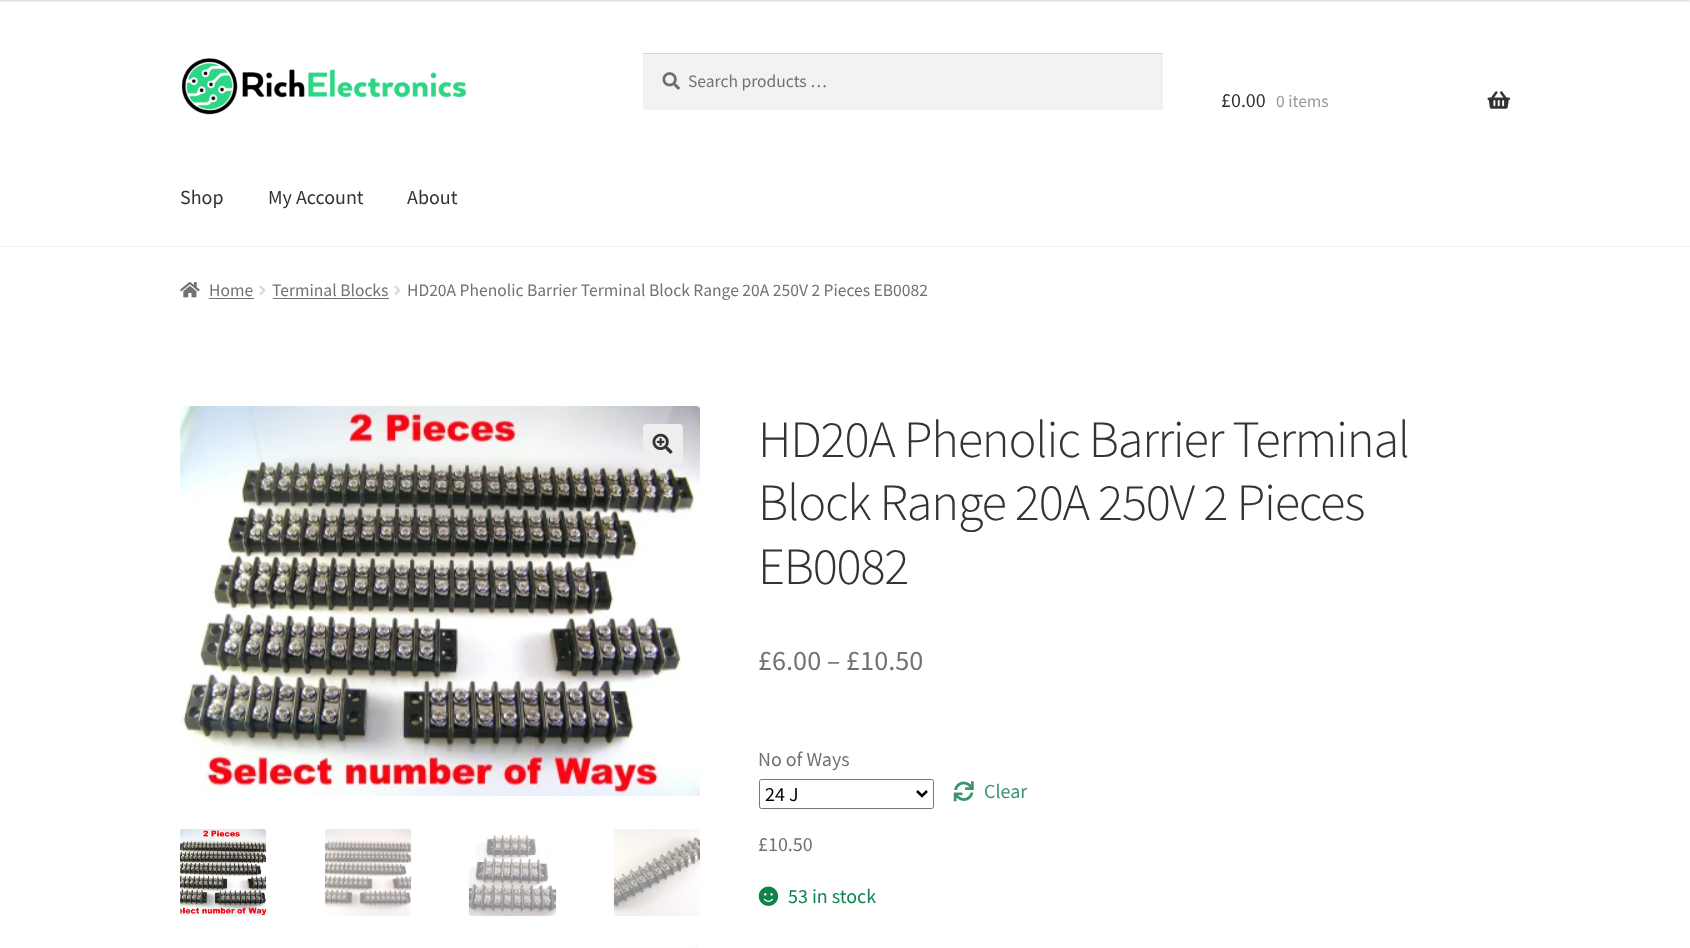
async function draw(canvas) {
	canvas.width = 1690;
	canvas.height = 948;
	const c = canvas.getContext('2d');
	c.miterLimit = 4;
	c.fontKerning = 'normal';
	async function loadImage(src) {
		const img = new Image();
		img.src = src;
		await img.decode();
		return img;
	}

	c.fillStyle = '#fff';
	c.fillRect(0, 0, 1690, 948);
	c.fillStyle = '#00000033';
	c.filter = 'blur(1px)';
	c.beginPath();
	c.rect(0, -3, 1690, 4);
	c.fill();
	c.filter = 'none';
	c.fillStyle = '#f0f0f0';
	c.fillRect(0, 246, 1690, 1);
	c.drawImage(await loadImage('img1.png'), 181, 58, 286, 57);
	c.fillStyle = '#f2f2f2';
	c.fillRect(643, 54, 520, 56);
	c.drawImage(await loadImage('img2.png'), 662, 72, 18, 18);
	c.fillStyle = '#d4d4d4';
	c.fillRect(643, 53, 520, 1);
	c.font = '17.5px Source Sans Pro';
	c.fillStyle = '#727272';
	c.fillText('Search products …', 688, 87);
	c.font = '20px Source Sans Pro';
	c.fillStyle = '#333';
	c.fillText('£0.00', 1221, 107);
	c.font = '17.5px Source Sans Pro';
	c.fillStyle = '#999';
	c.fillText('0 items', 1276, 107);
	c.drawImage(await loadImage('img3.png'), 1487, 91, 23, 18);
	c.font = '20px Source Sans Pro';
	c.fillStyle = '#333';
	for (const [text, x, y] of [
		['Shop', 180, 204],
		['My Account', 268, 204],
		['About', 407, 204],
	]) {
		c.fillText(text, x, y);
	}
	c.drawImage(await loadImage('img4.png'), 180, 282, 20, 16);
	c.font = '17.5px Source Sans Pro';
	c.fillStyle = '#727272';
	c.fillText('Home', 209, 296);
	c.fillRect(209, 298, 45, 1);
	c.drawImage(await loadImage('img5.png'), 259, 285, 7, 10);
	c.fillText('Terminal Blocks', 272, 296);
	c.fillRect(273, 298, 116, 1);
	c.drawImage(await loadImage('img5.png'), 394, 285, 7, 10);
	c.fillText('HD20A Phenolic Barrier Terminal Block Range 20A 250V 2 Pieces EB0082', 407, 296);
	c.drawImage(await loadImage('img6.png'), 180, 406, 520, 390);
	c.fillStyle = '#eee';
	c.beginPath();
	c.roundRect(643, 424, 40, 40, 4);
	c.fill();
	c.drawImage(await loadImage('img7.png'), 652, 433, 21, 21);
	c.drawImage(await loadImage('img8.png'), 180, 829, 87, 87);
	c.drawImage(await loadImage('img9.png'), 325, 829, 87, 87);
	c.drawImage(await loadImage('img10.png'), 468, 834, 89, 82);
	c.drawImage(await loadImage('img11.png'), 613, 829, 87, 87);
	c.drawImage(await loadImage('img12.png'), 617, 947, 81, 1);
	c.letterSpacing = '-1.25px';
	c.font = '300 52.4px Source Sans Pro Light';
	c.fillStyle = '#333';
	for (const [text, x, y] of [
		['HD20A Phenolic Barrier Terminal', 758, 457],
		['Block Range 20A 250V 2 Pieces', 758, 520],
		['EB0082', 758, 584],
	]) {
		c.fillText(text, x, y);
	}
	c.letterSpacing = '0px';
	c.font = '28.25px Source Sans Pro';
	c.fillStyle = '#727272';
	c.fillText('£6.00 – £10.50', 758, 670);
	c.font = '20px Source Sans Pro';
	c.fillText('No of Ways', 758, 766);
	c.beginPath();
	c.roundRect(759.5, 779.5, 174, 29, 2);
	c.strokeStyle = '#767676';
	c.stroke();
	c.beginPath();
	c.moveTo(917, 791);
	c.lineTo(922, 796);
	c.lineTo(927, 791);
	c.strokeStyle = '#000';
	c.lineWidth = 2.5;
	c.stroke();
	c.fillStyle = '#000';
	c.fillText('24 J', 765, 801);
	c.drawImage(await loadImage('img13.png'), 953, 781, 21, 21);
	c.fillStyle = '#3b936e';
	c.fillText('Clear', 984, 798);
	c.fillStyle = '#727272';
	c.fillText('£10.50', 758, 851);
	c.drawImage(await loadImage('img14.png'), 758, 886, 21, 20);
	c.fillStyle = '#0f834d';
	c.fillText('53 in stock', 788, 903);
}

draw(document.querySelector('canvas'));
